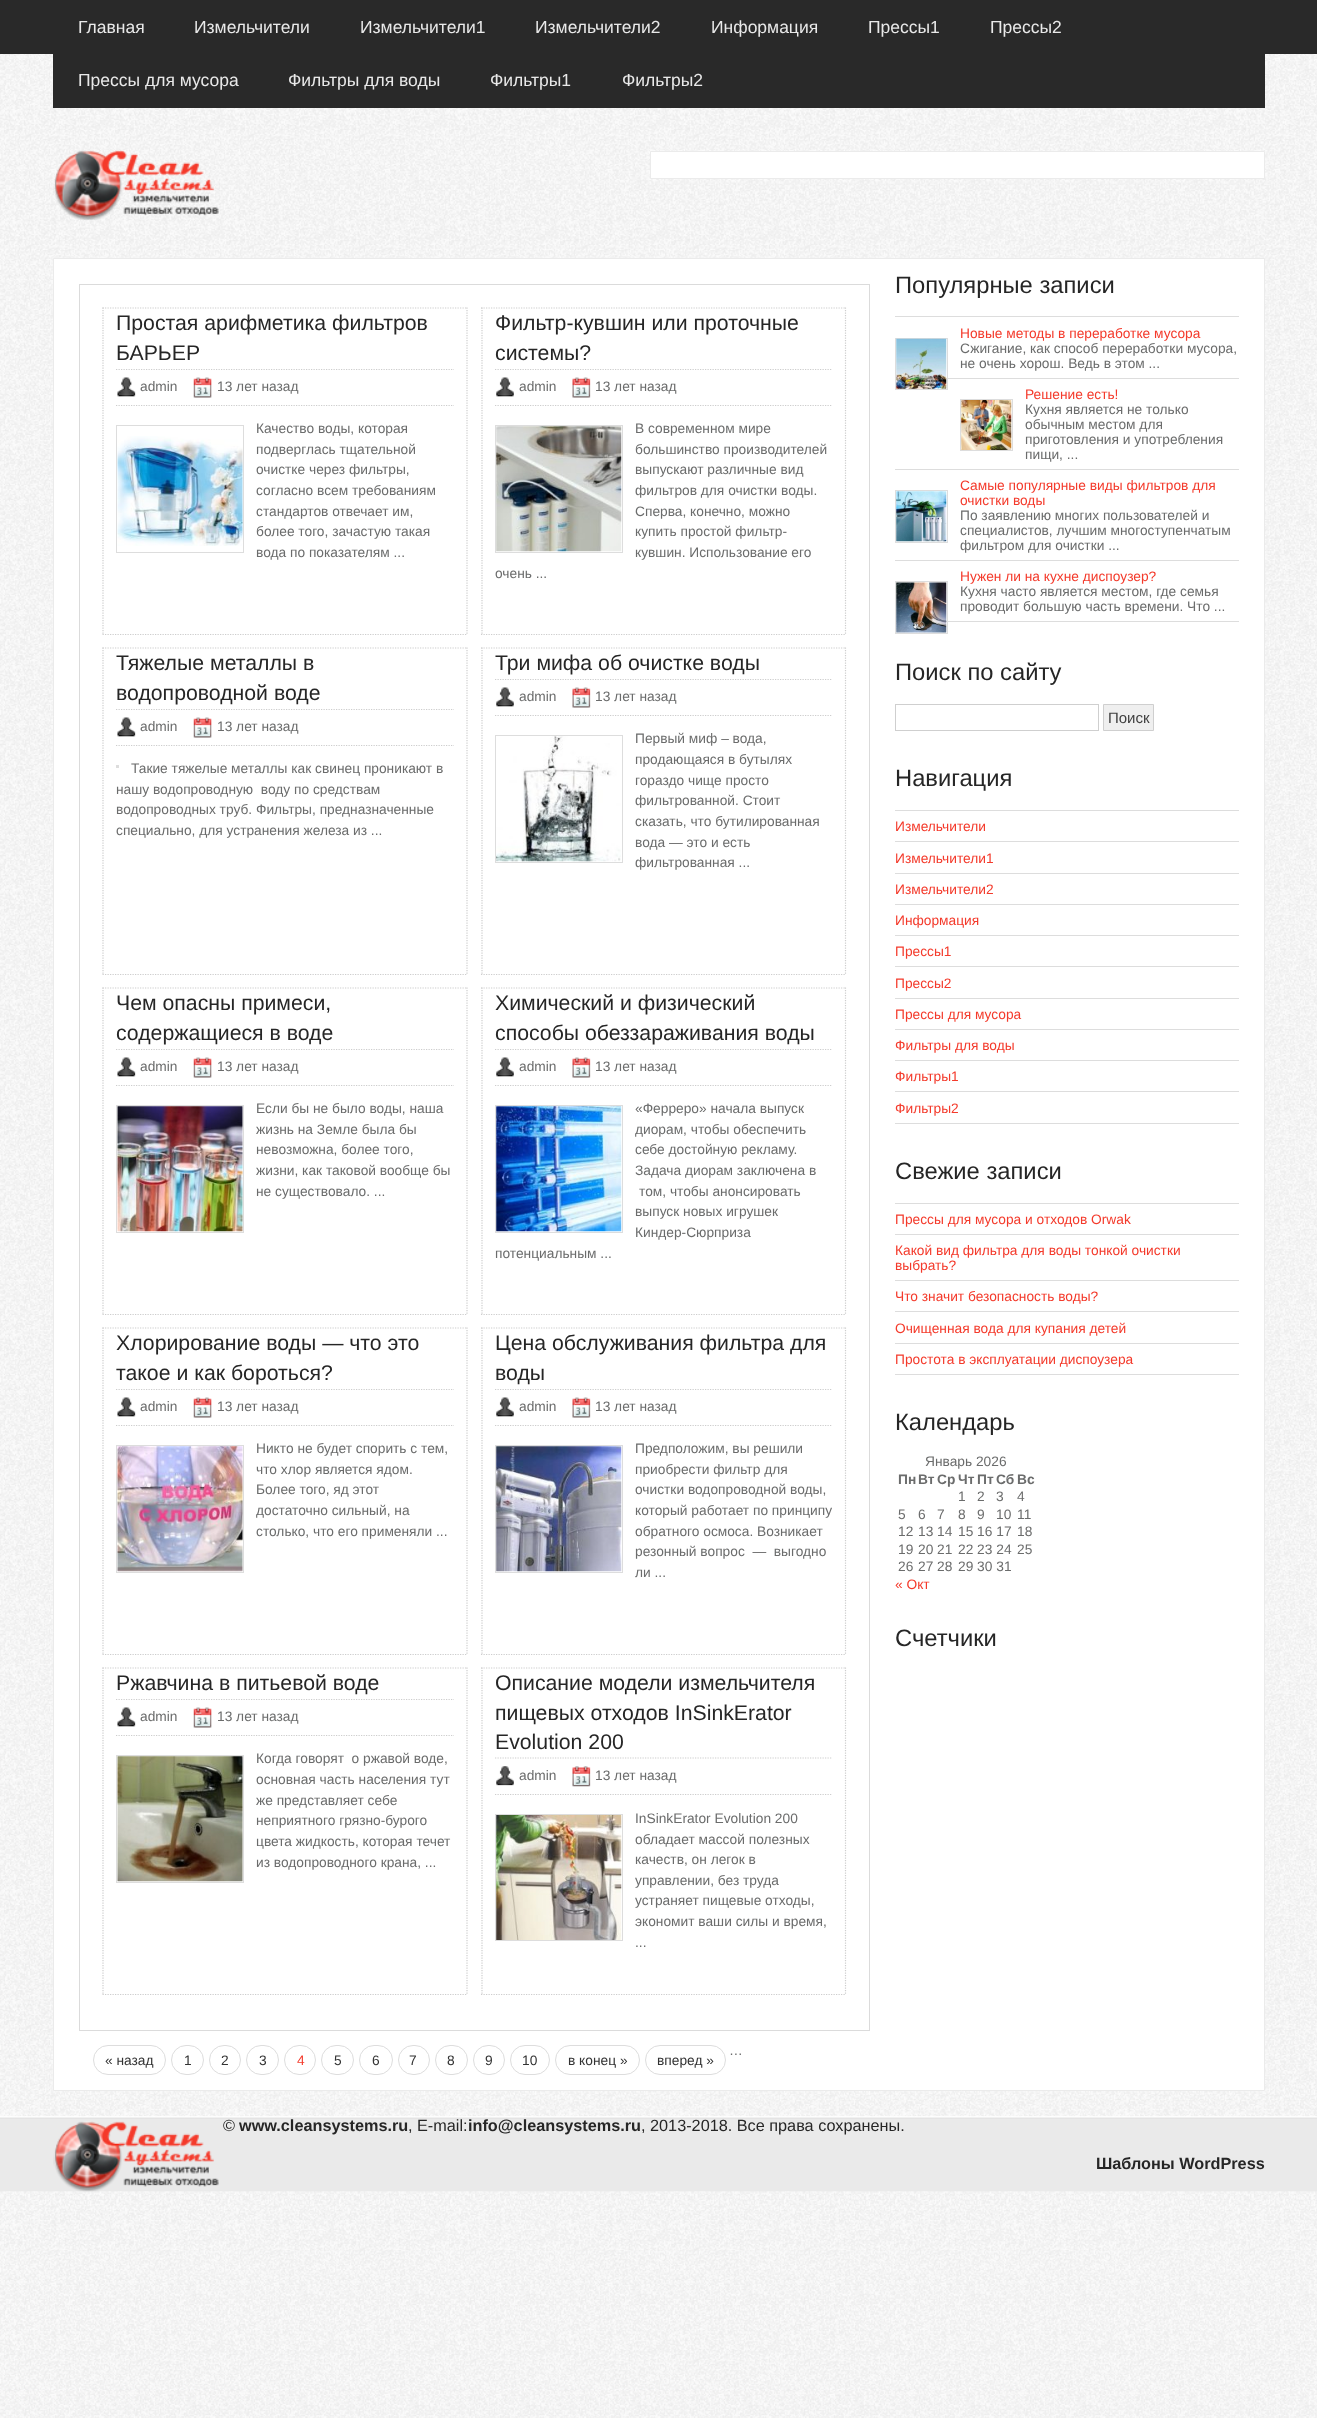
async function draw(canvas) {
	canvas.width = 1317;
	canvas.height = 2418;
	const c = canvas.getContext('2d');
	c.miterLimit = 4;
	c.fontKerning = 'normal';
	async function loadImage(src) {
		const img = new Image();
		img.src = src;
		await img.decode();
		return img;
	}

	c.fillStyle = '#fff';
	c.fillRect(0, 0, 1317, 2418);
	c.drawImage(await loadImage('img1.png'), 0, 54, 1317, 2364);
	c.fillStyle = '#292929';
	c.fillRect(0, 0, 1317, 54);
	c.fillRect(53, 54, 1212, 54);
	c.font = '17.5px Liberation Sans';
	c.fillStyle = '#e9e9e9';
	for (const [text, x, y] of [
		['Главная', 78, 33],
		['Измельчители', 194, 33],
		['Измельчители1', 360, 33],
		['Измельчители2', 535, 33],
		['Информация', 711, 33],
		['Пресcы1', 868, 33],
		['Пресcы2', 990, 33],
		['Прессы для мусора', 78, 86],
		['Фильтры для воды', 288, 86],
		['Фильтры1', 490, 86],
		['Фильтры2', 622, 86],
	]) {
		c.fillText(text, x, y);
	}
	c.drawImage(await loadImage('img2.png'), 53, 150, 166, 70);
	c.fillStyle = '#fff';
	c.beginPath();
	c.rect(650.5, 151.5, 614, 27);
	c.fill();
	c.strokeStyle = '#ebebeb';
	c.stroke();
	c.beginPath();
	c.rect(53.5, 258.5, 1211, 1832);
	c.fill();
	c.stroke();
	c.strokeStyle = '#dbdbdb';
	c.strokeRect(79.5, 284.5, 790, 1746);
	c.beginPath();
	c.moveTo(102.5, 308);
	c.lineTo(467.5, 308);
	c.strokeStyle = '#cdcdcd';
	c.lineWidth = 1.2;
	c.setLineDash([1.25, 1.25]);
	c.stroke();
	c.beginPath();
	c.moveTo(467, 307.5);
	c.lineTo(467, 635);
	c.stroke();
	c.beginPath();
	c.moveTo(102.5, 634.5);
	c.lineTo(467.5, 634.5);
	c.stroke();
	c.beginPath();
	c.moveTo(103, 307.5);
	c.lineTo(103, 635);
	c.stroke();
	c.font = '21.25px Liberation Sans';
	c.fillStyle = '#262626';
	c.fillText('Простая арифметика фильтров', 116, 330);
	c.fillText('БАРЬЕР', 116, 360);
	c.beginPath();
	c.moveTo(116, 369.5);
	c.lineTo(454, 369.5);
	c.stroke();
	c.beginPath();
	c.moveTo(116, 405.5);
	c.lineTo(454, 405.5);
	c.stroke();
	c.drawImage(await loadImage('img3.png'), 117, 377, 19, 20);
	c.font = '13.75px Liberation Sans';
	c.fillStyle = '#6b6c6c';
	c.fillText('admin', 140, 391);
	c.drawImage(await loadImage('img4.png'), 193, 377, 19, 21);
	c.fillText('13 лет назад', 217, 391);
	c.strokeStyle = '#ddd';
	c.lineWidth = 1;
	c.setLineDash([]);
	c.strokeRect(116.5, 425.5, 127, 127);
	c.drawImage(await loadImage('img5.png'), 117, 436, 126, 110);
	for (const [text, x, y] of [
		['Качество воды, которая', 256, 433],
		['подверглась тщательной', 256, 454],
		['очистке через фильтры,', 256, 474],
		['согласно всем требованиям', 256, 495],
		['стандартов отвечает им,', 256, 516],
		['более того, зачастую такая', 256, 536],
		['вода по показателям ...', 256, 557],
	]) {
		c.fillText(text, x, y);
	}
	c.beginPath();
	c.moveTo(481, 308);
	c.lineTo(846, 308);
	c.strokeStyle = '#cdcdcd';
	c.lineWidth = 1.2;
	c.setLineDash([1.25, 1.25]);
	c.stroke();
	c.beginPath();
	c.moveTo(845.5, 307.5);
	c.lineTo(845.5, 635);
	c.stroke();
	c.beginPath();
	c.moveTo(481, 634.5);
	c.lineTo(846, 634.5);
	c.stroke();
	c.beginPath();
	c.moveTo(482, 307.5);
	c.lineTo(482, 635);
	c.stroke();
	c.font = '21.25px Liberation Sans';
	c.fillStyle = '#262626';
	c.fillText('Фильтр-кувшин или проточные', 495, 330);
	c.fillText('системы?', 495, 360);
	c.beginPath();
	c.moveTo(495, 369.5);
	c.lineTo(832.5, 369.5);
	c.stroke();
	c.beginPath();
	c.moveTo(495, 405.5);
	c.lineTo(832.5, 405.5);
	c.stroke();
	c.drawImage(await loadImage('img6.png'), 496, 377, 18, 20);
	c.font = '13.75px Liberation Sans';
	c.fillStyle = '#6b6c6c';
	c.fillText('admin', 519, 391);
	c.drawImage(await loadImage('img7.png'), 572, 377, 19, 21);
	for (const [text, x, y] of [
		['13 лет назад', 595, 391],
		['В современном мире', 635, 433],
		['большинство производителей', 635, 454],
		['выпускают различные вид', 635, 474],
		['фильтров для очистки воды.', 635, 495],
		['Сперва, конечно, можно', 635, 516],
		['купить простой фильтр-', 635, 536],
		['кувшин. Использование его', 635, 557],
		['очень ...', 495, 578],
	]) {
		c.fillText(text, x, y);
	}
	c.strokeStyle = '#ddd';
	c.lineWidth = 1;
	c.setLineDash([]);
	c.strokeRect(495.5, 425.5, 127, 127);
	c.drawImage(await loadImage('img8.png'), 496, 426, 126, 126);
	c.beginPath();
	c.moveTo(102.5, 648);
	c.lineTo(467.5, 648);
	c.strokeStyle = '#cdcdcd';
	c.lineWidth = 1.2;
	c.setLineDash([1.25, 1.25]);
	c.stroke();
	c.beginPath();
	c.moveTo(467, 647.5);
	c.lineTo(467, 975);
	c.stroke();
	c.beginPath();
	c.moveTo(102.5, 974.5);
	c.lineTo(467.5, 974.5);
	c.stroke();
	c.beginPath();
	c.moveTo(103, 647.5);
	c.lineTo(103, 975);
	c.stroke();
	c.font = '21.25px Liberation Sans';
	c.fillStyle = '#262626';
	c.fillText('Тяжелые металлы в', 116, 670);
	c.fillText('водопроводной воде', 116, 700);
	c.beginPath();
	c.moveTo(116, 709.5);
	c.lineTo(454, 709.5);
	c.stroke();
	c.beginPath();
	c.moveTo(116, 745.5);
	c.lineTo(454, 745.5);
	c.stroke();
	c.drawImage(await loadImage('img3.png'), 117, 717, 19, 20);
	c.font = '13.75px Liberation Sans';
	c.fillStyle = '#6b6c6c';
	c.fillText('admin', 140, 731);
	c.drawImage(await loadImage('img4.png'), 193, 717, 19, 21);
	for (const [text, x, y] of [
		['13 лет назад', 217, 731],
		['Такие тяжелые металлы как свинец проникают в', 131, 773],
		['нашу водопроводную  воду по средствам', 116, 794],
		['водопроводных труб. Фильтры, предназначенные', 116, 814],
		['специально, для устранения железа из ...', 116, 835],
	]) {
		c.fillText(text, x, y);
	}
	c.fillStyle = '#ddd';
	c.fillRect(116, 765, 3, 3);
	c.beginPath();
	c.moveTo(481, 648);
	c.lineTo(846, 648);
	c.stroke();
	c.beginPath();
	c.moveTo(845.5, 647.5);
	c.lineTo(845.5, 975);
	c.stroke();
	c.beginPath();
	c.moveTo(481, 974.5);
	c.lineTo(846, 974.5);
	c.stroke();
	c.beginPath();
	c.moveTo(482, 647.5);
	c.lineTo(482, 975);
	c.stroke();
	c.font = '21.25px Liberation Sans';
	c.fillStyle = '#262626';
	c.fillText('Три мифа об очистке воды', 495, 670);
	c.beginPath();
	c.moveTo(495, 679.5);
	c.lineTo(832.5, 679.5);
	c.stroke();
	c.beginPath();
	c.moveTo(495, 715.5);
	c.lineTo(832.5, 715.5);
	c.stroke();
	c.drawImage(await loadImage('img6.png'), 496, 687, 18, 20);
	c.font = '13.75px Liberation Sans';
	c.fillStyle = '#6b6c6c';
	c.fillText('admin', 519, 701);
	c.drawImage(await loadImage('img7.png'), 572, 687, 19, 21);
	c.fillText('13 лет назад', 595, 701);
	c.strokeStyle = '#ddd';
	c.lineWidth = 1;
	c.setLineDash([]);
	c.strokeRect(495.5, 735.5, 127, 127);
	c.drawImage(await loadImage('img9.png'), 496, 736, 125, 126);
	for (const [text, x, y] of [
		['Первый миф – вода,', 635, 743],
		['продающаяся в бутылях', 635, 764],
		['гораздо чище просто', 635, 785],
		['фильтрованной. Стоит', 635, 805],
		['сказать, что бутилированная', 635, 826],
		['вода — это и есть', 635, 847],
		['фильтрованная ...', 635, 867],
	]) {
		c.fillText(text, x, y);
	}
	c.beginPath();
	c.moveTo(102.5, 988);
	c.lineTo(467.5, 988);
	c.strokeStyle = '#cdcdcd';
	c.lineWidth = 1.2;
	c.setLineDash([1.25, 1.25]);
	c.stroke();
	c.beginPath();
	c.moveTo(467, 987.5);
	c.lineTo(467, 1315);
	c.stroke();
	c.beginPath();
	c.moveTo(102.5, 1314.5);
	c.lineTo(467.5, 1314.5);
	c.stroke();
	c.beginPath();
	c.moveTo(103, 987.5);
	c.lineTo(103, 1315);
	c.stroke();
	c.font = '21.25px Liberation Sans';
	c.fillStyle = '#262626';
	c.fillText('Чем опасны примеси,', 116, 1010);
	c.fillText('содержащиеся в воде', 116, 1040);
	c.beginPath();
	c.moveTo(116, 1049.5);
	c.lineTo(454, 1049.5);
	c.stroke();
	c.beginPath();
	c.moveTo(116, 1085.5);
	c.lineTo(454, 1085.5);
	c.stroke();
	c.drawImage(await loadImage('img3.png'), 117, 1057, 19, 20);
	c.font = '13.75px Liberation Sans';
	c.fillStyle = '#6b6c6c';
	c.fillText('admin', 140, 1071);
	c.drawImage(await loadImage('img4.png'), 193, 1057, 19, 21);
	c.fillText('13 лет назад', 217, 1071);
	c.strokeStyle = '#ddd';
	c.lineWidth = 1;
	c.setLineDash([]);
	c.strokeRect(116.5, 1105.5, 127, 127);
	c.drawImage(await loadImage('img10.png'), 117, 1106, 126, 126);
	for (const [text, x, y] of [
		['Если бы не было воды, наша', 256, 1113],
		['жизнь на Земле была бы', 256, 1134],
		['невозможна, более того,', 256, 1154],
		['жизни, как таковой вообще бы', 256, 1175],
		['не существовало. ...', 256, 1196],
	]) {
		c.fillText(text, x, y);
	}
	c.beginPath();
	c.moveTo(481, 988);
	c.lineTo(846, 988);
	c.strokeStyle = '#cdcdcd';
	c.lineWidth = 1.2;
	c.setLineDash([1.25, 1.25]);
	c.stroke();
	c.beginPath();
	c.moveTo(845.5, 987.5);
	c.lineTo(845.5, 1315);
	c.stroke();
	c.beginPath();
	c.moveTo(481, 1314.5);
	c.lineTo(846, 1314.5);
	c.stroke();
	c.beginPath();
	c.moveTo(482, 987.5);
	c.lineTo(482, 1315);
	c.stroke();
	c.font = '21.25px Liberation Sans';
	c.fillStyle = '#262626';
	c.fillText('Химический и физический', 495, 1010);
	c.fillText('способы обеззараживания воды', 495, 1040);
	c.beginPath();
	c.moveTo(495, 1049.5);
	c.lineTo(832.5, 1049.5);
	c.stroke();
	c.beginPath();
	c.moveTo(495, 1085.5);
	c.lineTo(832.5, 1085.5);
	c.stroke();
	c.drawImage(await loadImage('img6.png'), 496, 1057, 18, 20);
	c.font = '13.75px Liberation Sans';
	c.fillStyle = '#6b6c6c';
	c.fillText('admin', 519, 1071);
	c.drawImage(await loadImage('img7.png'), 572, 1057, 19, 21);
	for (const [text, x, y] of [
		['13 лет назад', 595, 1071],
		['«Ферреро» начала выпуск', 635, 1113],
		['диорам, чтобы обеспечить', 635, 1134],
		['себе достойную рекламу.', 635, 1154],
		['Задача диорам заключена в', 635, 1175],
		['том, чтобы анонсировать', 639, 1196],
		['выпуск новых игрушек', 635, 1216],
		['Киндер-Сюрприза', 635, 1237],
		['потенциальным ...', 495, 1258],
	]) {
		c.fillText(text, x, y);
	}
	c.strokeStyle = '#ddd';
	c.lineWidth = 1;
	c.setLineDash([]);
	c.strokeRect(495.5, 1105.5, 127, 127);
	c.drawImage(await loadImage('img11.png'), 496, 1106, 126, 126);
	c.beginPath();
	c.moveTo(102.5, 1328);
	c.lineTo(467.5, 1328);
	c.strokeStyle = '#cdcdcd';
	c.lineWidth = 1.2;
	c.setLineDash([1.25, 1.25]);
	c.stroke();
	c.beginPath();
	c.moveTo(467, 1327.5);
	c.lineTo(467, 1655);
	c.stroke();
	c.beginPath();
	c.moveTo(102.5, 1654.5);
	c.lineTo(467.5, 1654.5);
	c.stroke();
	c.beginPath();
	c.moveTo(103, 1327.5);
	c.lineTo(103, 1655);
	c.stroke();
	c.font = '21.25px Liberation Sans';
	c.fillStyle = '#262626';
	c.fillText('Хлорирование воды — что это', 116, 1350);
	c.fillText('такое и как бороться?', 116, 1380);
	c.beginPath();
	c.moveTo(116, 1389.5);
	c.lineTo(454, 1389.5);
	c.stroke();
	c.beginPath();
	c.moveTo(116, 1425.5);
	c.lineTo(454, 1425.5);
	c.stroke();
	c.drawImage(await loadImage('img3.png'), 117, 1397, 19, 20);
	c.font = '13.75px Liberation Sans';
	c.fillStyle = '#6b6c6c';
	c.fillText('admin', 140, 1411);
	c.drawImage(await loadImage('img4.png'), 193, 1397, 19, 21);
	c.fillText('13 лет назад', 217, 1411);
	c.strokeStyle = '#ddd';
	c.lineWidth = 1;
	c.setLineDash([]);
	c.strokeRect(116.5, 1445.5, 127, 127);
	c.drawImage(await loadImage('img12.png'), 117, 1446, 126, 126);
	for (const [text, x, y] of [
		['Никто не будет спорить с тем,', 256, 1453],
		['что хлор является ядом.', 256, 1474],
		['Более того, яд этот', 256, 1494],
		['достаточно сильный, на', 256, 1515],
		['столько, что его применяли ...', 256, 1536],
	]) {
		c.fillText(text, x, y);
	}
	c.beginPath();
	c.moveTo(481, 1328);
	c.lineTo(846, 1328);
	c.strokeStyle = '#cdcdcd';
	c.lineWidth = 1.2;
	c.setLineDash([1.25, 1.25]);
	c.stroke();
	c.beginPath();
	c.moveTo(845.5, 1327.5);
	c.lineTo(845.5, 1655);
	c.stroke();
	c.beginPath();
	c.moveTo(481, 1654.5);
	c.lineTo(846, 1654.5);
	c.stroke();
	c.beginPath();
	c.moveTo(482, 1327.5);
	c.lineTo(482, 1655);
	c.stroke();
	c.font = '21.25px Liberation Sans';
	c.fillStyle = '#262626';
	c.fillText('Цена обслуживания фильтра для', 495, 1350);
	c.fillText('воды', 495, 1380);
	c.beginPath();
	c.moveTo(495, 1389.5);
	c.lineTo(832.5, 1389.5);
	c.stroke();
	c.beginPath();
	c.moveTo(495, 1425.5);
	c.lineTo(832.5, 1425.5);
	c.stroke();
	c.drawImage(await loadImage('img6.png'), 496, 1397, 18, 20);
	c.font = '13.75px Liberation Sans';
	c.fillStyle = '#6b6c6c';
	c.fillText('admin', 519, 1411);
	c.drawImage(await loadImage('img7.png'), 572, 1397, 19, 21);
	c.fillText('13 лет назад', 595, 1411);
	c.strokeStyle = '#ddd';
	c.lineWidth = 1;
	c.setLineDash([]);
	c.strokeRect(495.5, 1445.5, 127, 127);
	c.drawImage(await loadImage('img13.png'), 496, 1446, 126, 126);
	for (const [text, x, y] of [
		['Предположим, вы решили', 635, 1453],
		['приобрести фильтр для', 635, 1474],
		['очистки водопроводной воды,', 635, 1494],
		['который работает по принципу', 635, 1515],
		['обратного осмоса. Возникает', 635, 1536],
		['резонный вопрос  —  выгодно', 635, 1556],
		['ли ...', 635, 1577],
	]) {
		c.fillText(text, x, y);
	}
	c.beginPath();
	c.moveTo(102.5, 1668);
	c.lineTo(467.5, 1668);
	c.strokeStyle = '#cdcdcd';
	c.lineWidth = 1.2;
	c.setLineDash([1.25, 1.25]);
	c.stroke();
	c.beginPath();
	c.moveTo(467, 1667.5);
	c.lineTo(467, 1995);
	c.stroke();
	c.beginPath();
	c.moveTo(102.5, 1994.5);
	c.lineTo(467.5, 1994.5);
	c.stroke();
	c.beginPath();
	c.moveTo(103, 1667.5);
	c.lineTo(103, 1995);
	c.stroke();
	c.font = '21.25px Liberation Sans';
	c.fillStyle = '#262626';
	c.fillText('Ржавчина в питьевой воде', 116, 1690);
	c.beginPath();
	c.moveTo(116, 1699.5);
	c.lineTo(454, 1699.5);
	c.stroke();
	c.beginPath();
	c.moveTo(116, 1735.5);
	c.lineTo(454, 1735.5);
	c.stroke();
	c.drawImage(await loadImage('img3.png'), 117, 1707, 19, 20);
	c.font = '13.75px Liberation Sans';
	c.fillStyle = '#6b6c6c';
	c.fillText('admin', 140, 1721);
	c.drawImage(await loadImage('img4.png'), 193, 1707, 19, 21);
	c.fillText('13 лет назад', 217, 1721);
	c.strokeStyle = '#ddd';
	c.lineWidth = 1;
	c.setLineDash([]);
	c.strokeRect(116.5, 1755.5, 127, 127);
	c.drawImage(await loadImage('img14.png'), 117, 1756, 126, 126);
	for (const [text, x, y] of [
		['Когда говорят  о ржавой воде,', 256, 1763],
		['основная часть населения тут', 256, 1784],
		['же представляет себе', 256, 1805],
		['неприятного грязно-бурого', 256, 1825],
		['цвета жидкость, которая течет', 256, 1846],
		['из водопроводного крана, ...', 256, 1867],
	]) {
		c.fillText(text, x, y);
	}
	c.beginPath();
	c.moveTo(481, 1668);
	c.lineTo(846, 1668);
	c.strokeStyle = '#cdcdcd';
	c.lineWidth = 1.2;
	c.setLineDash([1.25, 1.25]);
	c.stroke();
	c.beginPath();
	c.moveTo(845.5, 1667.5);
	c.lineTo(845.5, 1995);
	c.stroke();
	c.beginPath();
	c.moveTo(481, 1994.5);
	c.lineTo(846, 1994.5);
	c.stroke();
	c.beginPath();
	c.moveTo(482, 1667.5);
	c.lineTo(482, 1995);
	c.stroke();
	c.font = '21.25px Liberation Sans';
	c.fillStyle = '#262626';
	for (const [text, x, y] of [
		['Описание модели измельчителя', 495, 1690],
		['пищевых отходов InSinkErator', 495, 1720],
		['Evolution 200', 495, 1749],
	]) {
		c.fillText(text, x, y);
	}
	c.beginPath();
	c.moveTo(495, 1758);
	c.lineTo(832.5, 1758);
	c.stroke();
	c.beginPath();
	c.moveTo(495, 1794.5);
	c.lineTo(832.5, 1794.5);
	c.stroke();
	c.drawImage(await loadImage('img15.png'), 496, 1766, 18, 20);
	c.font = '13.75px Liberation Sans';
	c.fillStyle = '#6b6c6c';
	c.fillText('admin', 519, 1780);
	c.drawImage(await loadImage('img16.png'), 572, 1766, 19, 21);
	c.fillText('13 лет назад', 595, 1780);
	c.strokeStyle = '#ddd';
	c.lineWidth = 1;
	c.setLineDash([]);
	c.strokeRect(495.5, 1814.5, 127, 126);
	c.drawImage(await loadImage('img17.png'), 496, 1815, 126, 125);
	for (const [text, x, y] of [
		['InSinkErator Evolution 200', 635, 1823],
		['обладает массой полезных', 635, 1844],
		['качеств, он легок в', 635, 1864],
		['управлении, без труда', 635, 1885],
		['устраняет пищевые отходы,', 635, 1905],
		['экономит ваши силы и время,', 635, 1926],
		['...', 635, 1947],
		['…', 729, 2055],
	]) {
		c.fillText(text, x, y);
	}
	c.beginPath();
	c.roundRect(93.5, 2045.5, 72, 29, 14.5);
	c.stroke();
	c.fillStyle = '#333';
	c.fillText('« назад', 105, 2065);
	c.beginPath();
	c.roundRect(171.5, 2045.5, 32, 29, 14.5);
	c.stroke();
	c.fillText('1', 184, 2065);
	c.beginPath();
	c.roundRect(209.5, 2045.5, 31, 29, 14.5);
	c.stroke();
	c.fillText('2', 221, 2065);
	c.beginPath();
	c.roundRect(246.5, 2045.5, 32, 29, 14.5);
	c.stroke();
	c.fillText('3', 259, 2065);
	c.beginPath();
	c.roundRect(284.5, 2045.5, 31, 29, 14.5);
	c.stroke();
	c.fillStyle = '#f43a2b';
	c.fillText('4', 297, 2065);
	c.beginPath();
	c.roundRect(321.5, 2045.5, 32, 29, 14.5);
	c.stroke();
	c.fillStyle = '#333';
	c.fillText('5', 334, 2065);
	c.beginPath();
	c.roundRect(359.5, 2045.5, 33, 29, 14.5);
	c.stroke();
	c.fillText('6', 372, 2065);
	c.beginPath();
	c.roundRect(398.5, 2045.5, 31, 29, 14.5);
	c.stroke();
	c.fillText('7', 409, 2065);
	c.beginPath();
	c.roundRect(435.5, 2045.5, 32, 29, 14.5);
	c.stroke();
	c.fillText('8', 447, 2065);
	c.beginPath();
	c.roundRect(473.5, 2045.5, 31, 29, 14.5);
	c.stroke();
	c.fillText('9', 485, 2065);
	c.beginPath();
	c.roundRect(510.5, 2045.5, 39, 29, 14.5);
	c.stroke();
	c.fillText('10', 522, 2065);
	c.beginPath();
	c.roundRect(555.5, 2045.5, 84, 29, 14.5);
	c.stroke();
	c.fillText('в конец »', 568, 2065);
	c.beginPath();
	c.roundRect(645.5, 2045.5, 80, 29, 14.5);
	c.stroke();
	c.fillText('вперед »', 657, 2065);
	c.font = '23.75px Liberation Sans';
	c.fillStyle = '#262626';
	c.fillText('Популярные записи', 895, 293);
	c.fillStyle = '#ddd';
	c.fillRect(895, 316, 344, 1);
	c.fillRect(895, 378, 344, 1);
	c.font = '13.75px Liberation Sans';
	c.fillStyle = '#f43a2b';
	c.fillText('Новые методы в переработке мусора', 960, 338);
	c.strokeRect(895.5, 338.5, 52, 51);
	c.drawImage(await loadImage('img18.png'), 896, 338, 51, 51);
	c.fillStyle = '#6b6c6c';
	c.fillText('Сжигание, как способ переработки мусора,', 960, 353);
	c.fillText('не очень хорош. Ведь в этом ...', 960, 368);
	c.fillStyle = '#ddd';
	c.fillRect(895, 469, 344, 1);
	c.fillStyle = '#f43a2b';
	c.fillText('Решение есть!', 1025, 399);
	c.strokeRect(960.5, 399.5, 52, 51);
	c.drawImage(await loadImage('img19.png'), 961, 400, 51, 50);
	c.fillStyle = '#6b6c6c';
	for (const [text, x, y] of [
		['Кухня является не только', 1025, 414],
		['обычным местом для', 1025, 429],
		['приготовления и употребления', 1025, 444],
		['пищи, ...', 1025, 459],
	]) {
		c.fillText(text, x, y);
	}
	c.fillStyle = '#ddd';
	c.fillRect(895, 560, 344, 1);
	c.fillStyle = '#f43a2b';
	c.fillText('Самые популярные виды фильтров для', 960, 490);
	c.strokeRect(895.5, 490.5, 52, 52);
	c.drawImage(await loadImage('img20.png'), 896, 491, 51, 51);
	c.fillText('очистки воды', 960, 505);
	c.fillStyle = '#6b6c6c';
	for (const [text, x, y] of [
		['По заявлению многих пользователей и', 960, 520],
		['специалистов, лучшим многоступенчатым', 960, 535],
		['фильтром для очистки ...', 960, 550],
	]) {
		c.fillText(text, x, y);
	}
	c.fillStyle = '#ddd';
	c.fillRect(895, 621, 344, 1);
	c.fillStyle = '#f43a2b';
	c.fillText('Нужен ли на кухне диспоузер?', 960, 581);
	c.strokeRect(895.5, 581.5, 52, 52);
	c.drawImage(await loadImage('img21.png'), 896, 582, 51, 51);
	c.fillStyle = '#6b6c6c';
	c.fillText('Кухня часто является местом, где семья', 960, 596);
	c.fillText('проводит большую часть времени. Что ...', 960, 611);
	c.font = '23.75px Liberation Sans';
	c.fillStyle = '#262626';
	c.fillText('Поиск по сайту', 895, 680);
	c.strokeStyle = '#cfcfcf';
	c.strokeRect(895.5, 704.5, 203, 26);
	c.fillStyle = '#efefef';
	c.beginPath();
	c.rect(1103.5, 704.5, 50, 26);
	c.fill();
	c.stroke();
	c.font = '15px Liberation Sans';
	c.fillStyle = '#404040';
	c.fillText('Поиск', 1108, 723);
	c.font = '23.75px Liberation Sans';
	c.fillStyle = '#262626';
	c.fillText('Навигация', 895, 786);
	c.fillStyle = '#ddd';
	c.fillRect(895, 810, 344, 1);
	c.fillRect(895, 841, 344, 1);
	c.font = '13.75px Liberation Sans';
	c.fillStyle = '#f43a2b';
	c.fillText('Измельчители', 895, 831);
	c.fillStyle = '#ddd';
	c.fillRect(895, 873, 344, 1);
	c.fillStyle = '#f43a2b';
	c.fillText('Измельчители1', 895, 863);
	c.fillStyle = '#ddd';
	c.fillRect(895, 904, 344, 1);
	c.fillStyle = '#f43a2b';
	c.fillText('Измельчители2', 895, 894);
	c.fillStyle = '#ddd';
	c.fillRect(895, 935, 344, 1);
	c.fillStyle = '#f43a2b';
	c.fillText('Информация', 895, 925);
	c.fillStyle = '#ddd';
	c.fillRect(895, 966, 344, 1);
	c.fillStyle = '#f43a2b';
	c.fillText('Пресcы1', 895, 956);
	c.fillStyle = '#ddd';
	c.fillRect(895, 998, 344, 1);
	c.fillStyle = '#f43a2b';
	c.fillText('Пресcы2', 895, 988);
	c.fillStyle = '#ddd';
	c.fillRect(895, 1029, 344, 1);
	c.fillStyle = '#f43a2b';
	c.fillText('Прессы для мусора', 895, 1019);
	c.fillStyle = '#ddd';
	c.fillRect(895, 1060, 344, 1);
	c.fillStyle = '#f43a2b';
	c.fillText('Фильтры для воды', 895, 1050);
	c.fillStyle = '#ddd';
	c.fillRect(895, 1091, 344, 1);
	c.fillStyle = '#f43a2b';
	c.fillText('Фильтры1', 895, 1081);
	c.fillStyle = '#ddd';
	c.fillRect(895, 1123, 344, 1);
	c.fillStyle = '#f43a2b';
	c.fillText('Фильтры2', 895, 1113);
	c.font = '23.75px Liberation Sans';
	c.fillStyle = '#262626';
	c.fillText('Свежие записи', 895, 1179);
	c.fillStyle = '#ddd';
	c.fillRect(895, 1203, 344, 1);
	c.fillRect(895, 1234, 344, 1);
	c.font = '13.75px Liberation Sans';
	c.fillStyle = '#f43a2b';
	c.fillText('Прессы для мусора и отходов Orwak', 895, 1224);
	c.fillStyle = '#ddd';
	c.fillRect(895, 1280, 344, 1);
	c.fillStyle = '#f43a2b';
	c.fillText('Какой вид фильтра для воды тонкой очистки', 895, 1255);
	c.fillText('выбрать?', 895, 1270);
	c.fillStyle = '#ddd';
	c.fillRect(895, 1311, 344, 1);
	c.fillStyle = '#f43a2b';
	c.fillText('Что значит безопасность воды?', 895, 1301);
	c.fillStyle = '#ddd';
	c.fillRect(895, 1343, 344, 1);
	c.fillStyle = '#f43a2b';
	c.fillText('Очищенная вода для купания детей', 895, 1333);
	c.fillStyle = '#ddd';
	c.fillRect(895, 1374, 344, 1);
	c.fillStyle = '#f43a2b';
	c.fillText('Простота в эксплуатации диспоузера', 895, 1364);
	c.font = '23.75px Liberation Sans';
	c.fillStyle = '#262626';
	c.fillText('Календарь', 895, 1430);
	c.font = '13.75px Liberation Sans';
	c.fillStyle = '#6b6c6c';
	c.fillText('Январь 2026', 925, 1466);
	c.font = 'bold 13.75px Liberation Sans';
	for (const [text, x, y] of [
		['Пн', 898, 1484],
		['Вт', 918, 1484],
		['Ср', 937, 1484],
		['Чт', 958, 1484],
		['Пт', 977, 1484],
		['Сб', 996, 1484],
		['Вс', 1017, 1484],
	]) {
		c.fillText(text, x, y);
	}
	c.font = '13.75px Liberation Sans';
	for (const [text, x, y] of [
		['1', 958, 1501],
		['2', 977, 1501],
		['3', 996, 1501],
		['4', 1017, 1501],
		['5', 898, 1519],
		['6', 918, 1519],
		['7', 937, 1519],
		['8', 958, 1519],
		['9', 977, 1519],
		['10', 996, 1519],
		['11', 1017, 1519],
		['12', 898, 1536],
		['13 14', 918, 1536],
		['15 16 17', 958, 1536],
		['18', 1017, 1536],
		['19', 898, 1554],
		['20 21', 918, 1554],
		['22 23 24', 958, 1554],
		['25', 1017, 1554],
		['26', 898, 1571],
		['27 28', 918, 1571],
		['29 30 31', 958, 1571],
	]) {
		c.fillText(text, x, y);
	}
	c.fillStyle = '#f43a2b';
	c.fillText('« Окт', 895, 1589);
	c.font = '23.75px Liberation Sans';
	c.fillStyle = '#262626';
	c.fillText('Счетчики', 895, 1646);
	c.drawImage(await loadImage('img22.png'), 0, 2116, 1317, 76);
	c.drawImage(await loadImage('img23.png'), 53, 2121, 166, 71);
	c.font = '16.25px Liberation Sans';
	c.fillText('©', 223, 2131);
	c.font = 'bold 16.25px Liberation Sans';
	c.fillText('www.cleansystems.ru', 239, 2131);
	c.font = '16.25px Liberation Sans';
	c.fillText(', E-mail:', 408, 2131);
	c.font = 'bold 16.25px Liberation Sans';
	c.fillText('info@cleansystems.ru', 468, 2131);
	c.font = '16.25px Liberation Sans';
	c.fillText(', 2013-2018. Все права сохранены.', 641, 2131);
	c.font = 'bold 16.25px Liberation Sans';
	c.fillText('Шаблоны WordPress', 1096, 2169);
}

draw(document.querySelector('canvas'));
